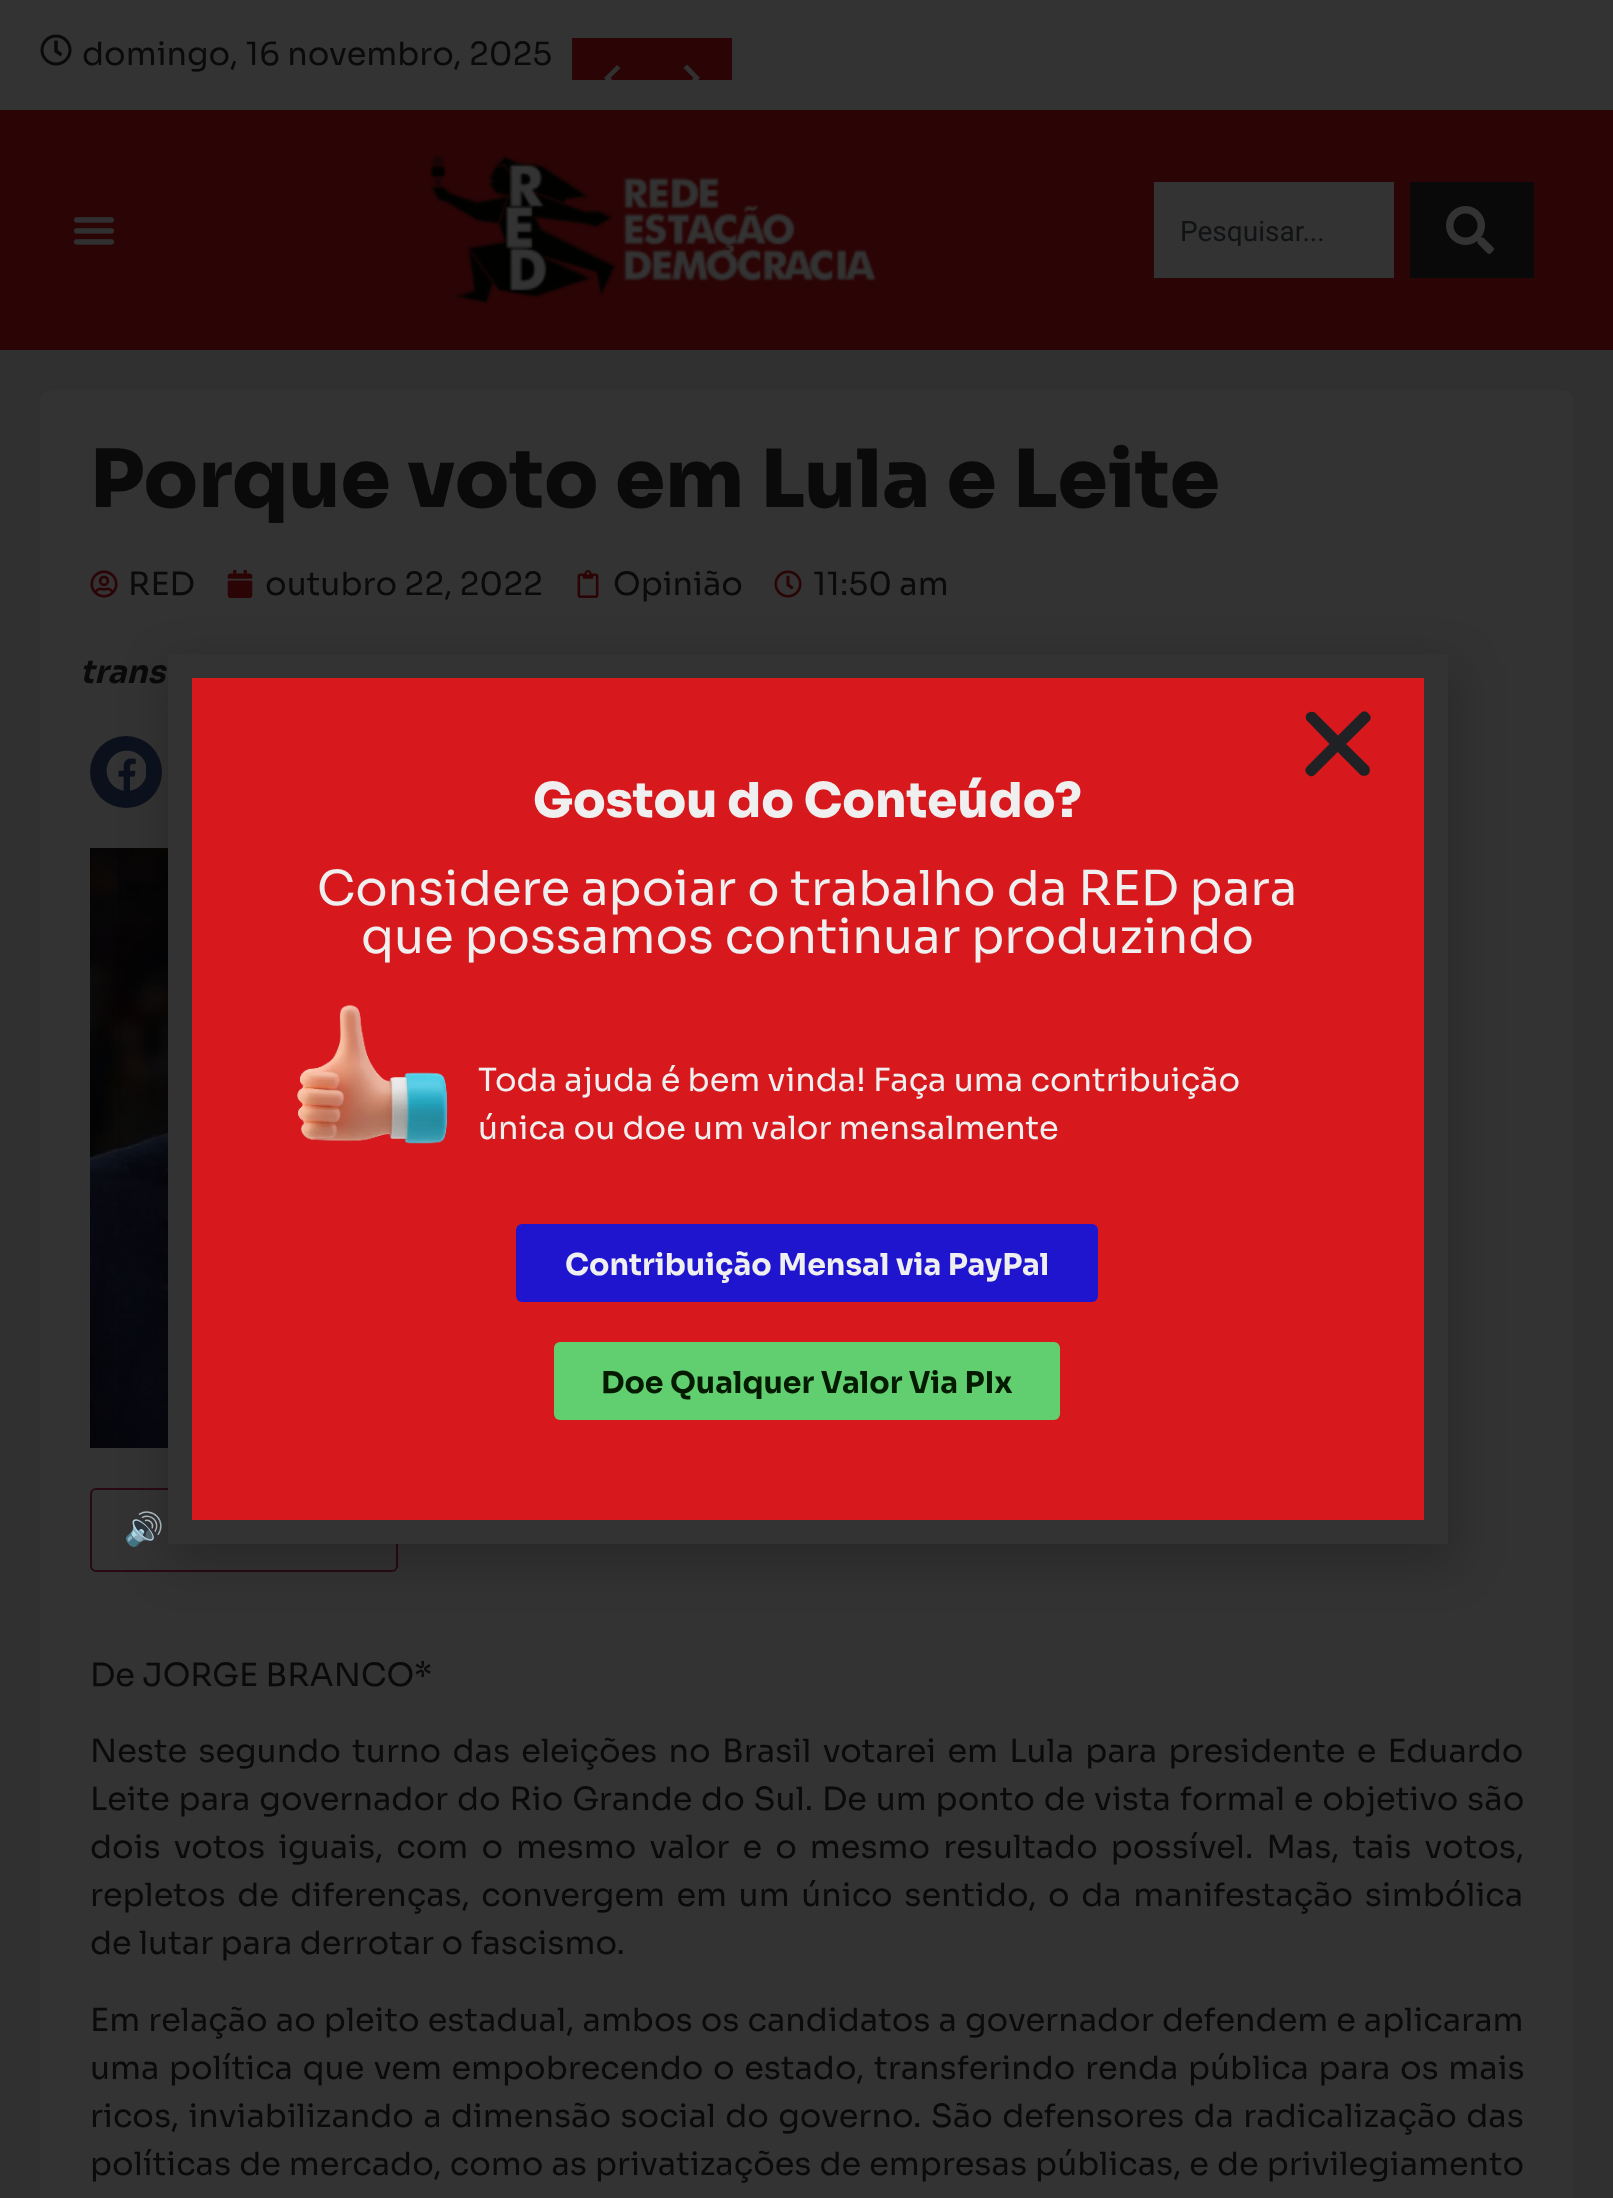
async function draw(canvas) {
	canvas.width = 1613;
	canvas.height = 2198;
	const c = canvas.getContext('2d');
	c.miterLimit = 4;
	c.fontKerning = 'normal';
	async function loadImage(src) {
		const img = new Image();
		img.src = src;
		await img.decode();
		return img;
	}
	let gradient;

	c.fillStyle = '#333';
	c.fillRect(0, 0, 1613, 2198);
	c.drawImage(await loadImage('img1.png'), 40, 34, 32, 32);
	c.font = '32px Sora';
	c.fillStyle = '#0a0a0a';
	c.fillText('domingo, 16 novembro, 2025', 82, 65);
	c.fillStyle = '#2b0506';
	c.fillRect(572, 38, 160, 42);
	c.save();
	c.beginPath();
	c.rect(588, 54, 48, 26);
	c.clip();
	c.fillStyle = '#313131';
	c.beginPath();
	c.moveTo(617, 65);
	c.lineTo(620.5, 68);
	c.lineTo(610.5, 78);
	c.lineTo(620.5, 88);
	c.lineTo(617, 91.5);
	c.lineTo(604, 78);
	c.closePath();
	c.fill();
	c.restore();
	c.save();
	c.beginPath();
	c.rect(668, 54, 48, 26);
	c.clip();
	c.fillStyle = '#313131';
	c.beginPath();
	c.moveTo(687, 91);
	c.lineTo(683.5, 88);
	c.lineTo(693.5, 78);
	c.lineTo(683.5, 68);
	c.lineTo(687, 64.5);
	c.lineTo(700, 78);
	c.closePath();
	c.fill();
	c.restore();
	c.fillRect(0, 110, 1613, 240);
	c.drawImage(await loadImage('img2.png'), 73, 217, 42, 28);
	c.drawImage(await loadImage('img3.png'), 429, 155, 448, 150);
	c.fillStyle = '#333';
	c.fillRect(1154, 182, 240, 96);
	c.save();
	c.beginPath();
	c.rect(1180, 214, 184, 32);
	c.clip();
	c.font = '28px Roboto';
	c.fillStyle = '#101214';
	c.fillText('Pesquisar...', 1180, 241);
	c.restore();
	c.fillStyle = '#090909';
	c.fillRect(1410, 182, 124, 96);
	c.drawImage(await loadImage('img4.png'), 1446, 206, 48, 48);
	c.fillStyle = '#303030';
	c.fillRect(0, 350, 1613, 1848);
	c.fillStyle = '#333';
	c.beginPath();
	c.roundRect(40, 390, 1534, 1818, 10);
	c.fill();
	c.font = '800 80px Sora';
	c.fillStyle = '#0a0a0a';
	c.fillText('Porque voto em Lula e Leite', 90, 507);
	c.drawImage(await loadImage('img5.png'), 90, 570, 28, 28);
	c.font = '32px Sora';
	c.fillText('RED', 128, 595);
	c.drawImage(await loadImage('img6.png'), 227, 570, 26, 28);
	c.fillText('outubro 22, 2022', 265, 595);
	c.drawImage(await loadImage('img7.png'), 577, 570, 22, 28);
	c.fillText('Opinião', 613, 595);
	c.drawImage(await loadImage('img8.png'), 774, 570, 28, 28);
	c.fillText('11:50 am', 813, 595);
	c.font = 'italic bold 32px Sora';
	c.fillText('trans', 80, 683);
	c.fillStyle = '#0c121e';
	c.beginPath();
	c.arc(126, 772, 36, 0, 2 * Math.PI);
	c.fill();
	gradient = c.createLinearGradient(90, 772, 162, 772);
	gradient.addColorStop(0, '#0000001f');
	gradient.addColorStop(1, '#00000000');
	c.fillStyle = gradient;
	c.beginPath();
	c.arc(126, 772, 36, 0, 2 * Math.PI);
	c.fill();
	c.drawImage(await loadImage('img9.png'), 106, 750, 40, 41);
	c.drawImage(await loadImage('img10.png'), 90, 848, 78, 600);
	c.beginPath();
	c.roundRect(91, 1489, 306, 82, 5);
	c.strokeStyle = '#290a14';
	c.lineWidth = 2;
	c.stroke();
	c.font = '32px Noto Color Emoji';
	c.fillStyle = '#290a14';
	c.fillText('🔊', 124, 1540);
	c.font = '32px Sora';
	c.fillStyle = '#0a0a0a';
	c.fillText('De JORGE BRANCO*', 90, 1686);
	c.wordSpacing = '4px';
	c.fillText('Neste segundo turno das eleições no Brasil votarei em Lula para presidente e Eduardo', 90, 1762);
	c.wordSpacing = '1.5px';
	c.fillText('Leite para governador do Rio Grande do Sul. De um ponto de vista formal e objetivo são', 90, 1810);
	c.wordSpacing = '5.75px';
	c.fillText('dois votos iguais, com o mesmo valor e o mesmo resultado possível. Mas, tais votos,', 90, 1858);
	c.wordSpacing = '4.25px';
	c.fillText('repletos de diferenças, convergem em um único sentido, o da manifestação simbólica', 90, 1906);
	c.wordSpacing = '0px';
	c.fillText('de lutar para derrotar o fascismo.', 90, 1954);
	c.wordSpacing = '0.75px';
	c.fillText('Em relação ao pleito estadual, ambos os candidatos a governador defendem e aplicaram', 90, 2031);
	c.wordSpacing = '2.25px';
	c.fillText('uma política que vem empobrecendo o estado, transferindo renda pública para os mais', 90, 2079);
	c.wordSpacing = '2px';
	c.fillText('ricos, inviabilizando a dimensão social do governo. São defensores da radicalização das', 90, 2127);
	c.wordSpacing = '0.75px';
	c.fillText('políticas de mercado, como as privatizações de empresas públicas, e de privilegiamento', 90, 2175);
	c.fillStyle = '#00000033';
	c.filter = 'blur(23px)';
	c.beginPath();
	c.rect(166, 664, 1292, 902);
	c.fill();
	c.filter = 'none';
	c.fillStyle = '#d7191e';
	c.beginPath();
	c.rect(180, 666, 1256, 866);
	c.fill();
	c.strokeStyle = '#333';
	c.lineWidth = 24;
	c.stroke();
	c.drawImage(await loadImage('img11.png'), 1305, 711, 66, 66);
	c.wordSpacing = '0px';
	c.font = '800 48px Sora';
	c.fillStyle = '#efefef';
	c.fillText('Gostou do Conteúdo?', 533, 817);
	c.font = '48px Sora';
	c.fillText('Considere apoiar o trabalho da RED para', 317, 905);
	c.fillText('que possamos continuar produzindo', 361, 953);
	c.drawImage(await loadImage('img12.png'), 297, 1005, 151, 139);
	c.font = '32px Sora';
	c.fillText('Toda ajuda é bem vinda! Faça uma contribuição', 478, 1091);
	c.fillText('única ou doe um valor mensalmente', 478, 1139);
	c.fillStyle = '#2015cf';
	c.beginPath();
	c.roundRect(516, 1224, 582, 78, 6);
	c.fill();
	c.font = 'bold 30px Sora';
	c.fillStyle = '#efefef';
	c.fillText('Contribuição Mensal via PayPal', 565, 1275);
	c.fillStyle = '#61ce70';
	c.beginPath();
	c.roundRect(554, 1342, 506, 78, 6);
	c.fill();
	c.fillStyle = '#051b01';
	c.fillText('Doe Qualquer Valor Via PIx', 601, 1393);
}

draw(document.querySelector('canvas'));
